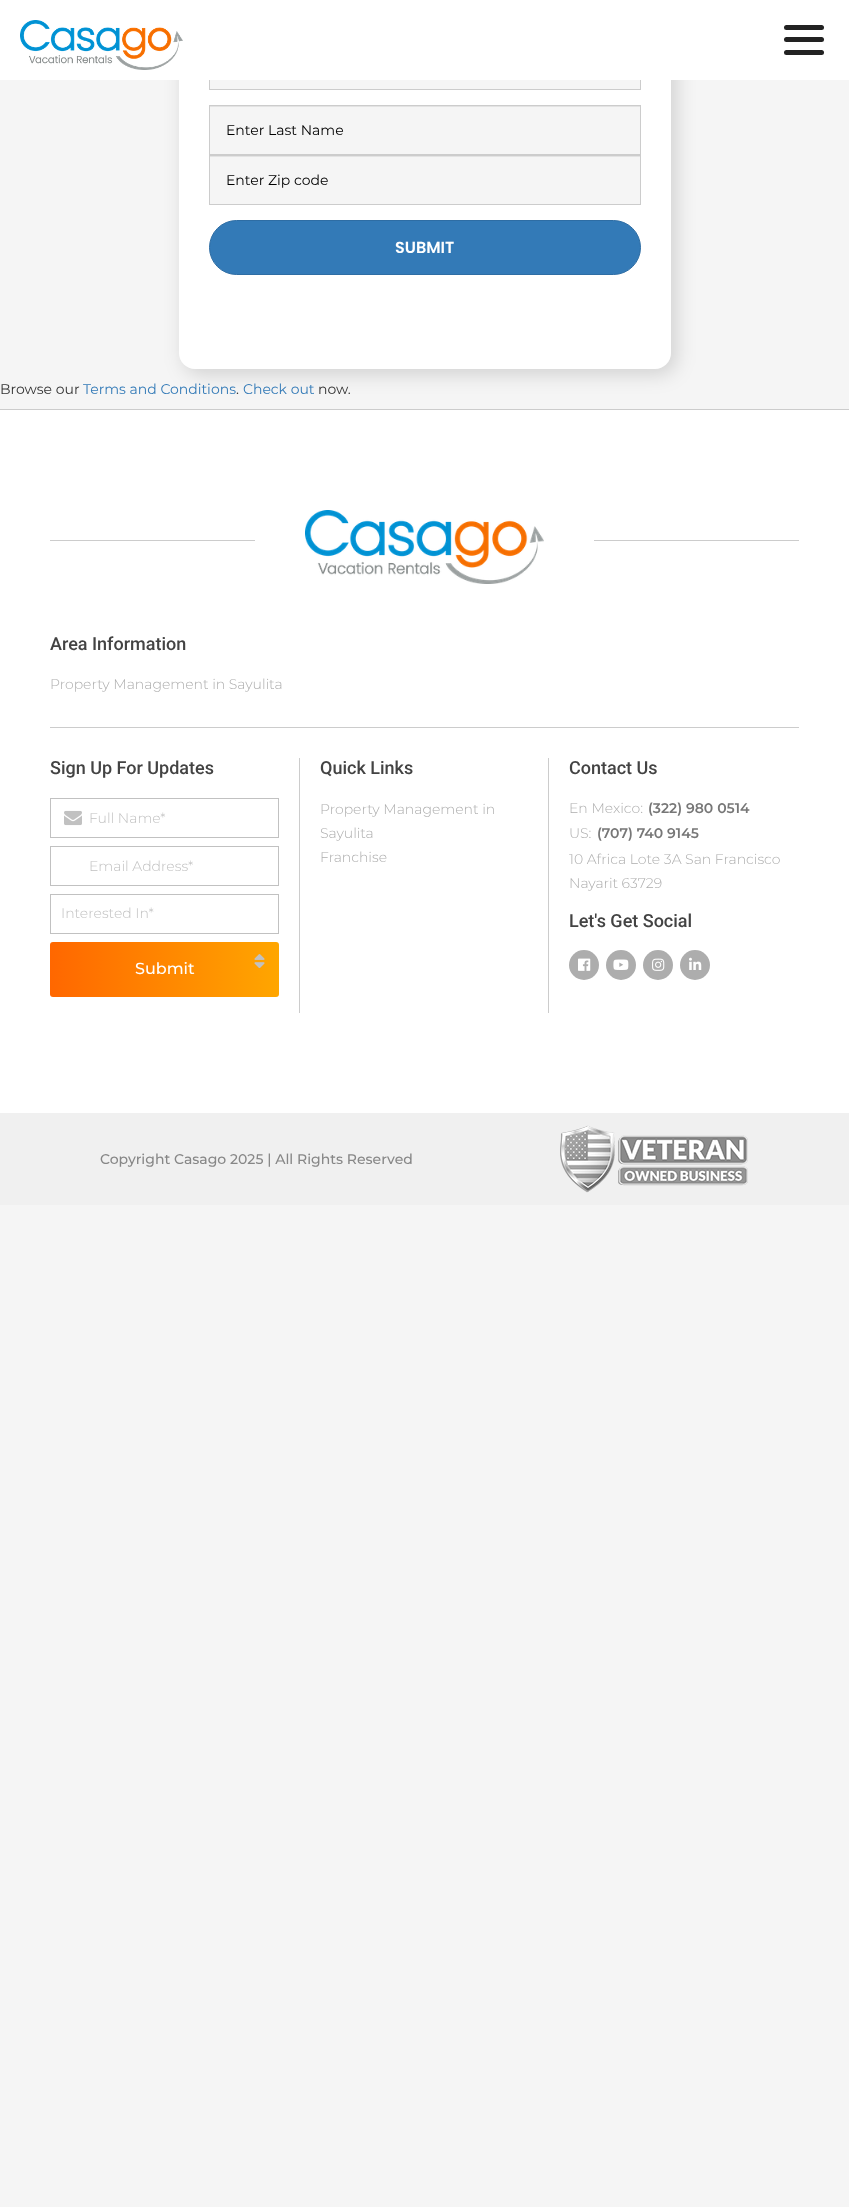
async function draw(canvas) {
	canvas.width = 849;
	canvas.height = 2207;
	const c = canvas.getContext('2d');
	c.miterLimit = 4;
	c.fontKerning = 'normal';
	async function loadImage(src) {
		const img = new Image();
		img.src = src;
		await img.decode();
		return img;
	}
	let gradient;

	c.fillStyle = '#f5f5f5';
	c.fillRect(0, 0, 849, 2207);
	c.fillStyle = '#00000026';
	c.filter = 'blur(10px)';
	c.beginPath();
	c.roundRect(184, 15, 492, 359, 16);
	c.fill();
	c.filter = 'none';
	c.fillStyle = '#fff';
	c.beginPath();
	c.roundRect(179, 10, 492, 359, 16);
	c.fill();
	c.fillStyle = '#f5f5f5';
	c.fillRect(210, 80, 430, 9);
	c.strokeStyle = '#ccc';
	c.strokeRect(209.5, 40.5, 431, 49);
	c.fillStyle = '#fff';
	c.fillRect(0, 0, 849, 80);
	c.drawImage(await loadImage('img1.png'), 20, 20, 163, 50);
	c.fillStyle = '#222';
	c.beginPath();
	c.roundRect(784, 25, 40, 5, 2.5);
	c.fill();
	c.beginPath();
	c.roundRect(784, 37, 40, 5, 2.5);
	c.fill();
	c.beginPath();
	c.roundRect(784, 50, 40, 5, 2.5);
	c.fill();
	c.fillStyle = '#f5f5f5';
	c.fillRect(210, 107, 430, 47);
	c.fillStyle = '#e3e3e3';
	c.fillRect(210, 106, 430, 1);
	c.strokeRect(209.5, 105.5, 431, 49);
	c.font = '14px Montserrat';
	c.fillStyle = '#000';
	c.fillText('Enter Last Name', 226, 135);
	c.fillStyle = '#f5f5f5';
	c.fillRect(210, 157, 430, 47);
	c.fillStyle = '#e3e3e3';
	c.fillRect(210, 156, 430, 1);
	c.strokeRect(209.5, 155.5, 431, 49);
	c.fillStyle = '#000';
	c.fillText('Enter Zip code', 226, 185);
	c.fillStyle = '#337ab7';
	c.beginPath();
	c.roundRect(209.5, 220.5, 431, 54, 27);
	c.fill();
	c.strokeStyle = '#2e6da4';
	c.stroke();
	c.font = '600 16px Poppins';
	c.fillStyle = '#fff';
	c.fillText('SUBMIT', 395, 253);
	c.font = '14px Montserrat';
	c.fillStyle = '#333';
	c.fillText('Browse our', 0, 394);
	c.fillStyle = '#337ab7';
	c.fillText('Terms and Conditions', 83, 394);
	c.fillStyle = '#333';
	c.fillText('.', 236, 394);
	c.fillStyle = '#337ab7';
	c.fillText('Check out', 243, 394);
	c.fillStyle = '#333';
	c.fillText('now.', 318, 394);
	for (const [x, y, w, h, color] of [
		[0, 409, 849, 1, '#ccc'],
		[0, 410, 849, 703, '#fff'],
		[50, 540, 749, 1, '#ccc'],
		[255, 540, 339, 1, '#fff'],
	]) {
		c.fillStyle = color;
		c.fillRect(x, y, w, h);
	}
	c.drawImage(await loadImage('img2.png'), 305, 510, 239, 74);
	c.fillStyle = '#ccc';
	c.fillRect(50, 727, 749, 1);
	c.font = '500 18px Roboto';
	c.fillStyle = '#434343';
	c.fillText('Area Information', 50, 650);
	c.font = '300 14px Montserrat';
	c.fillStyle = '#adadad';
	c.fillText('Property Management in Sayulita', 50, 689);
	c.fillStyle = '#ccc';
	c.fillRect(299, 758, 1, 255);
	c.font = '500 18px Roboto';
	c.fillStyle = '#434343';
	c.fillText('Sign Up For Updates', 50, 774);
	c.strokeStyle = '#c1c1c1';
	c.strokeRect(50.5, 798.5, 228, 39);
	c.drawImage(await loadImage('img3.png'), 64, 810, 18, 16);
	c.font = '300 14px Montserrat';
	c.fillStyle = '#c1c1c1';
	c.fillText('Full Name*', 89, 823);
	c.strokeRect(50.5, 846.5, 228, 39);
	c.fillText('Email Address*', 89, 871);
	c.strokeRect(50.5, 894.5, 228, 39);
	c.fillText('Interested In*', 61, 918);
	gradient = c.createLinearGradient(50, 970, 279, 970);
	gradient.addColorStop(0, '#ff6700');
	gradient.addColorStop(1, '#ffa600');
	c.fillStyle = gradient;
	c.beginPath();
	c.roundRect(50, 942, 229, 55, 3);
	c.fill();
	c.drawImage(await loadImage('img4.png'), 254, 954, 11, 14);
	c.font = '500 16px Montserrat';
	c.fillStyle = '#fff';
	c.fillText('Submit', 135, 974);
	c.fillStyle = '#ccc';
	c.fillRect(548, 758, 1, 255);
	c.font = '500 18px Roboto';
	c.fillStyle = '#434343';
	c.fillText('Quick Links', 320, 774);
	c.font = '300 14px Montserrat';
	c.fillStyle = '#adadad';
	for (const [text, x, y] of [
		['Property Management in', 320, 814],
		['Sayulita', 320, 838],
		['Franchise', 320, 862],
	]) {
		c.fillText(text, x, y);
	}
	c.font = '500 18px Roboto';
	c.fillStyle = '#434343';
	c.fillText('Contact Us', 569, 774);
	c.font = '300 14px Montserrat';
	c.fillStyle = '#adadad';
	c.fillText('En Mexico:', 569, 813);
	c.font = '600 14px Montserrat';
	c.fillStyle = '#777';
	c.fillText('(322) 980 0514', 648, 813);
	c.font = '300 14px Montserrat';
	c.fillStyle = '#adadad';
	c.fillText('US:', 569, 838);
	c.font = '600 14px Montserrat';
	c.fillStyle = '#777';
	c.fillText('(707) 740 9145', 597, 838);
	c.font = '300 14px Montserrat';
	c.fillStyle = '#adadad';
	c.fillText('10 Africa Lote 3A San Francisco', 569, 864);
	c.fillText('Nayarit 63729', 569, 888);
	c.font = '500 18px Roboto';
	c.fillStyle = '#434343';
	c.fillText('Let\'s Get Social', 569, 927);
	c.fillStyle = '#adadad';
	c.beginPath();
	c.arc(584, 965, 15, 0, 2 * Math.PI);
	c.fill();
	c.drawImage(await loadImage('img5.png'), 578, 958, 13, 13);
	c.beginPath();
	c.arc(621, 965, 15, 0, 2 * Math.PI);
	c.fill();
	c.drawImage(await loadImage('img6.png'), 613, 959, 16, 11);
	c.beginPath();
	c.arc(658, 965, 15, 0, 2 * Math.PI);
	c.fill();
	c.drawImage(await loadImage('img7.png'), 652, 958, 13, 13);
	c.beginPath();
	c.arc(695, 965, 15, 0, 2 * Math.PI);
	c.fill();
	c.drawImage(await loadImage('img8.png'), 689, 957, 13, 13);
	c.fillStyle = '#f0f0f0';
	c.fillRect(0, 1113, 849, 92);
	c.font = '500 14px Montserrat';
	c.fillStyle = '#878787';
	c.fillText('Copyright Casago 2025 | All Rights Reserved', 100, 1164);
	c.drawImage(await loadImage('img9.png'), 560, 1125, 188, 68);
}

draw(document.querySelector('canvas'));
